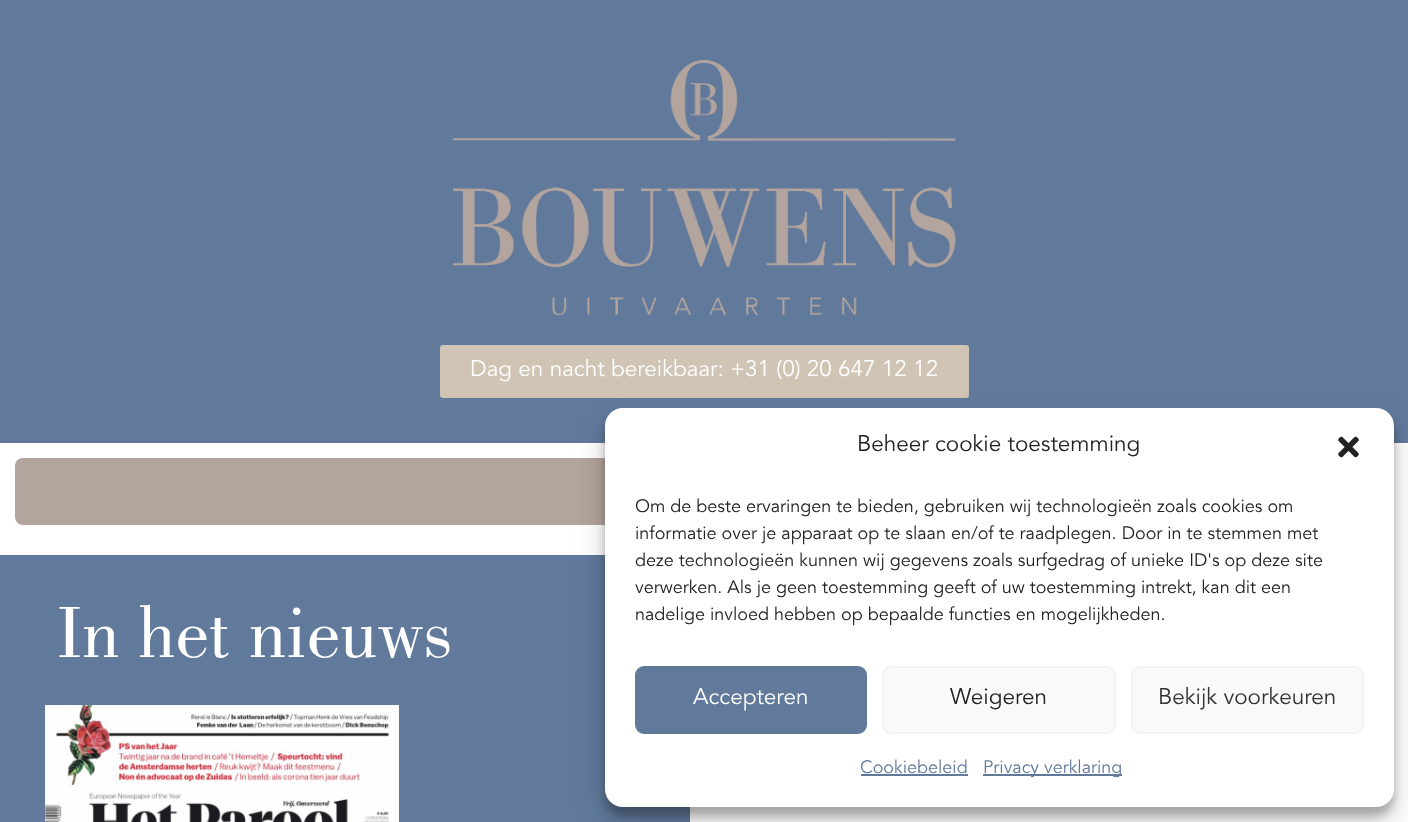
async function draw(canvas) {
	canvas.width = 1408;
	canvas.height = 822;
	const c = canvas.getContext('2d');
	c.miterLimit = 4;
	c.fontKerning = 'normal';
	async function loadImage(src) {
		const img = new Image();
		img.src = src;
		await img.decode();
		return img;
	}

	c.fillStyle = '#fff';
	c.fillRect(0, 0, 1408, 822);
	c.fillStyle = '#617a9c';
	c.fillRect(0, 0, 1408, 443);
	c.drawImage(await loadImage('img1.png'), 453, 60, 503, 255);
	c.fillStyle = '#d0c4b4';
	c.beginPath();
	c.roundRect(440, 345, 529, 53, 3);
	c.fill();
	c.font = '22.5px Avenir';
	c.fillStyle = '#fff';
	c.fillText('Dag en nacht bereikbaar: +31 (0) 20 647 12 12', 470, 376);
	c.fillStyle = '#b3a49d';
	c.beginPath();
	c.roundRect(15, 458, 1379, 67, 8);
	c.fill();
	c.fillStyle = '#617a9c';
	c.fillRect(0, 555, 690, 267);
	c.font = '75px Bodoni';
	c.fillStyle = '#fff';
	c.fillText('In het nieuws', 57, 657);
	c.drawImage(await loadImage('img2.png'), 45, 705, 354, 117);
	c.fillStyle = '#0000003b';
	c.filter = 'blur(4.5px)';
	c.beginPath();
	c.roundRect(605, 417, 789, 399, 18);
	c.fill();
	c.filter = 'none';
	c.fillStyle = '#00000030';
	c.filter = 'blur(15px)';
	c.beginPath();
	c.roundRect(605, 423, 789, 399, 18);
	c.fill();
	c.filter = 'none';
	c.fillStyle = '#fff';
	c.beginPath();
	c.roundRect(605, 408, 789, 399, 18);
	c.fill();
	c.font = '22.5px Avenir';
	c.fillStyle = '#222';
	c.fillText('Beheer cookie toestemming', 857, 451);
	c.drawImage(await loadImage('img3.png'), 1338, 436, 21, 22);
	c.font = '18px Avenir';
	for (const [text, x, y] of [
		['Om de beste ervaringen te bieden, gebruiken wij technologieën zoals cookies om', 635, 512],
		['informatie over je apparaat op te slaan en/of te raadplegen. Door in te stemmen met', 635, 539],
		['deze technologieën kunnen wij gegevens zoals surfgedrag of unieke ID\'s op deze site', 635, 566],
		['verwerken. Als je geen toestemming geeft of uw toestemming intrekt, kan dit een', 635, 593],
		['nadelige invloed hebben op bepaalde functies en mogelijkheden.', 635, 620],
	]) {
		c.fillText(text, x, y);
	}
	c.fillStyle = '#617a9c';
	c.beginPath();
	c.roundRect(636, 667, 230, 66, 8);
	c.fill();
	c.strokeStyle = '#617a9c';
	c.lineWidth = 2;
	c.stroke();
	c.font = '22.5px Avenir';
	c.fillStyle = '#fff';
	c.fillText('Accepteren', 693, 704);
	c.fillStyle = '#f9f9f9';
	c.beginPath();
	c.roundRect(883, 667, 232, 66, 8);
	c.fill();
	c.strokeStyle = '#f2f2f2';
	c.stroke();
	c.fillStyle = '#222';
	c.fillText('Weigeren', 950, 704);
	c.fillStyle = '#f9f9f9';
	c.beginPath();
	c.roundRect(1132, 667, 231, 66, 8);
	c.fill();
	c.stroke();
	c.fillStyle = '#333';
	c.fillText('Bekijk voorkeuren', 1158, 704);
	c.font = '18px Avenir';
	c.fillStyle = '#617a9c';
	c.fillText('Cookiebeleid', 860, 773);
	c.fillRect(861, 774, 107, 2);
	c.fillRect(983, 774, 139, 2);
	c.fillText('Privacy verklaring', 983, 773);
}

draw(document.querySelector('canvas'));
